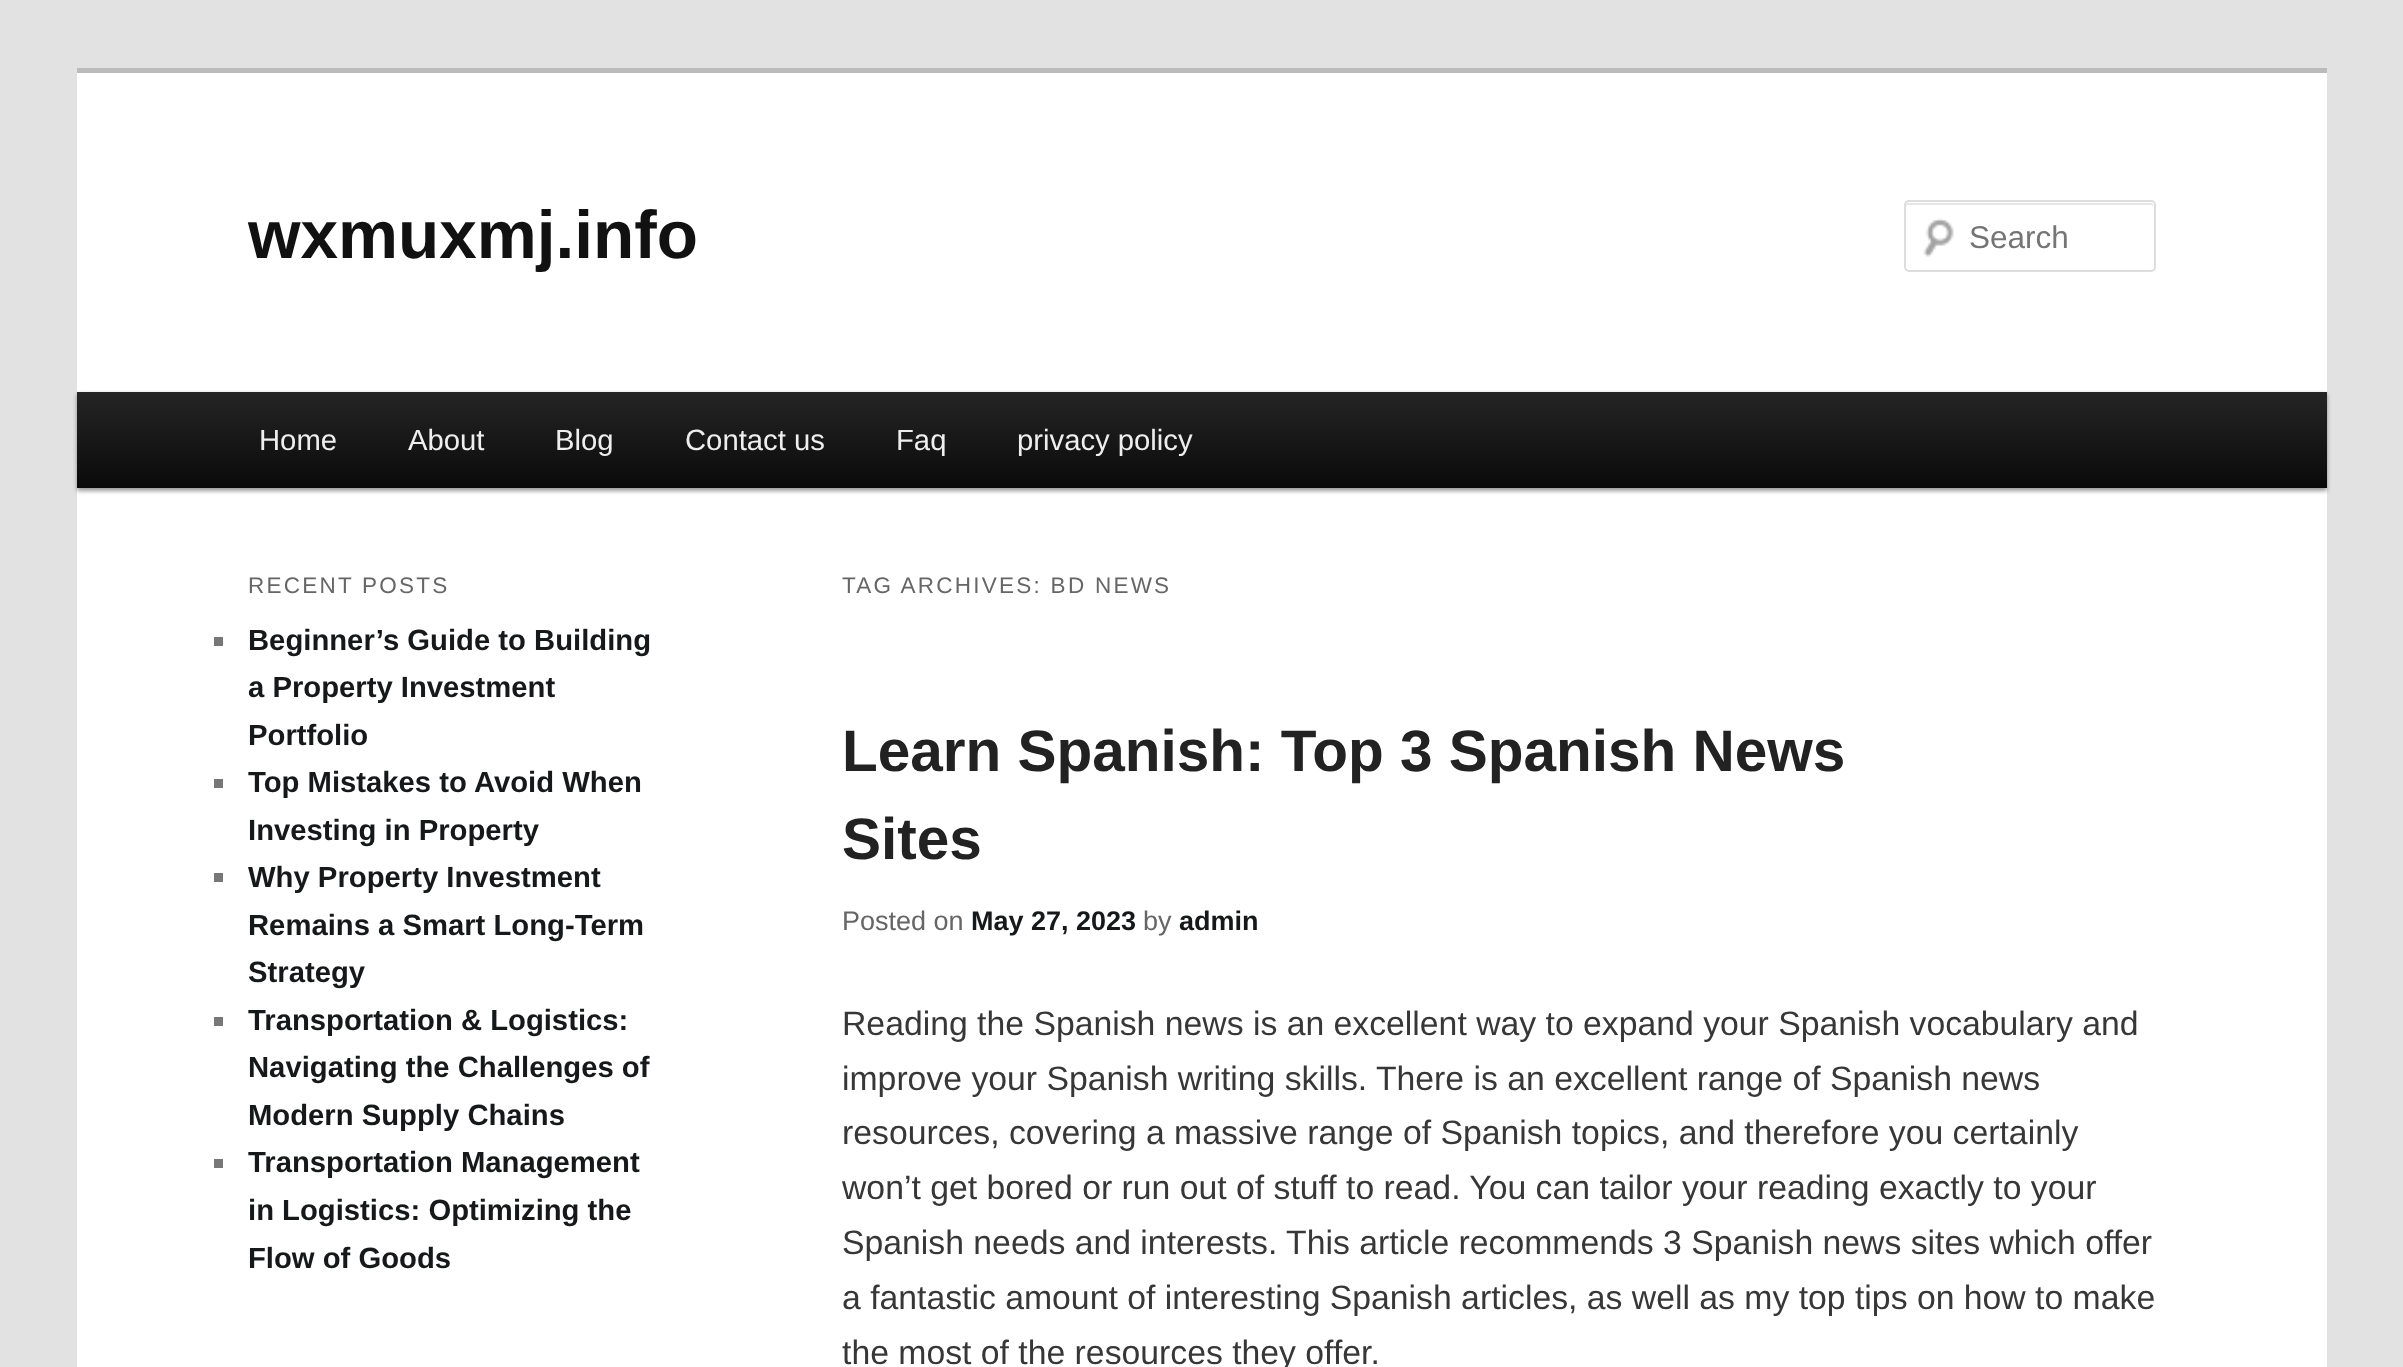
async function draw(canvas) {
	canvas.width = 2403;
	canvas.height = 1367;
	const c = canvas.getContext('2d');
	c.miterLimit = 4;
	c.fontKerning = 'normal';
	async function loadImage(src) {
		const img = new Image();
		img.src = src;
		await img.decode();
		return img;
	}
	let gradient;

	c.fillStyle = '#e2e2e2';
	c.fillRect(0, 0, 2403, 1367);
	c.fillStyle = '#fff';
	c.fillRect(77, 73, 2250, 1294);
	c.fillStyle = '#bbb';
	c.fillRect(77, 68, 2250, 5);
	c.font = 'bold 67.5px Liberation Sans';
	c.fillStyle = '#111';
	c.fillText('wxmuxmj.info', 248, 258);
	c.drawImage(await loadImage('img1.png'), 1923, 218, 31, 39);
	c.fillStyle = '#e6e6e6';
	c.beginPath();
	c.moveTo(1908, 205);
	c.lineTo(2151, 205);
	c.bezierCurveTo(2152, 205, 2153, 206, 2153, 207);
	c.bezierCurveTo(2153, 205, 2153, 203, 2151, 203);
	c.lineTo(1908, 203);
	c.bezierCurveTo(1906, 203, 1906, 205, 1906, 207);
	c.bezierCurveTo(1906, 206, 1907, 205, 1908, 205);
	c.closePath();
	c.fill();
	c.beginPath();
	c.roundRect(1905, 201, 250, 70, 4);
	c.strokeStyle = '#ddd';
	c.lineWidth = 2;
	c.stroke();
	c.font = '31.5px Liberation Sans';
	c.fillStyle = '#757575';
	c.fillText('Search', 1969, 248);
	c.fillStyle = '#00000066';
	c.filter = 'blur(2px)';
	c.beginPath();
	c.rect(77, 394, 2250, 97);
	c.fill();
	c.filter = 'none';
	gradient = c.createLinearGradient(1202, 391, 1202, 488);
	gradient.addColorStop(0, '#252525');
	gradient.addColorStop(1, '#0a0a0a');
	c.fillStyle = gradient;
	c.fillRect(77, 392, 2250, 96);
	c.font = '29.25px Liberation Sans';
	c.fillStyle = '#eee';
	for (const [text, x, y] of [
		['Home', 259, 450],
		['About', 408, 450],
		['Blog', 555, 450],
		['Contact us', 685, 450],
		['Faq', 896, 450],
		['privacy policy', 1017, 450],
	]) {
		c.fillText(text, x, y);
	}
	c.letterSpacing = '2.25px';
	c.font = '22.5px Liberation Sans';
	c.fillStyle = '#666';
	c.fillText('RECENT POSTS', 248, 593);
	c.fillStyle = '#777';
	c.fillRect(214, 637, 9, 9);
	c.letterSpacing = '0px';
	c.font = 'bold 29.25px Liberation Sans';
	c.fillStyle = '#161819';
	for (const [text, x, y] of [
		['Beginner’s Guide to Building', 248, 650],
		['a Property Investment', 248, 697],
		['Portfolio', 248, 745],
	]) {
		c.fillText(text, x, y);
	}
	c.fillStyle = '#777';
	c.fillRect(214, 779, 9, 9);
	c.fillStyle = '#161819';
	c.fillText('Top Mistakes to Avoid When', 248, 792);
	c.fillText('Investing in Property', 248, 840);
	c.fillStyle = '#777';
	c.fillRect(214, 873, 9, 9);
	c.fillStyle = '#161819';
	for (const [text, x, y] of [
		['Why Property Investment', 248, 887],
		['Remains a Smart Long-Term', 248, 935],
		['Strategy', 248, 982],
	]) {
		c.fillText(text, x, y);
	}
	c.fillStyle = '#777';
	c.fillRect(214, 1017, 9, 9);
	c.fillStyle = '#161819';
	for (const [text, x, y] of [
		['Transportation & Logistics:', 248, 1030],
		['Navigating the Challenges of', 248, 1077],
		['Modern Supply Chains', 248, 1125],
	]) {
		c.fillText(text, x, y);
	}
	c.fillStyle = '#777';
	c.fillRect(214, 1159, 9, 9);
	c.fillStyle = '#161819';
	for (const [text, x, y] of [
		['Transportation Management', 248, 1172],
		['in Logistics: Optimizing the', 248, 1220],
		['Flow of Goods', 248, 1268],
	]) {
		c.fillText(text, x, y);
	}
	c.letterSpacing = '2.25px';
	c.font = '22.5px Liberation Sans';
	c.fillStyle = '#666';
	c.fillText('TAG ARCHIVES: BD NEWS', 842, 593);
	c.letterSpacing = '0px';
	c.font = 'bold 58.5px Liberation Sans';
	c.fillStyle = '#222';
	c.fillText('Learn Spanish: Top 3 Spanish News', 842, 771);
	c.fillText('Sites', 842, 859);
	c.font = '27px Liberation Sans';
	c.fillStyle = '#666';
	c.fillText('Posted on', 842, 930);
	c.font = 'bold 27px Liberation Sans';
	c.fillStyle = '#161819';
	c.fillText('May 27, 2023', 971, 930);
	c.font = '27px Liberation Sans';
	c.fillStyle = '#666';
	c.fillText('by', 1143, 930);
	c.font = 'bold 27px Liberation Sans';
	c.fillStyle = '#161819';
	c.fillText('admin', 1179, 930);
	c.font = '33.75px Liberation Sans';
	c.fillStyle = '#373737';
	for (const [text, x, y] of [
		['Reading the Spanish news is an excellent way to expand your Spanish vocabulary and', 842, 1035],
		['improve your Spanish writing skills. There is an excellent range of Spanish news', 842, 1090],
		['resources, covering a massive range of Spanish topics, and therefore you certainly', 842, 1144],
		['won’t get bored or run out of stuff to read. You can tailor your reading exactly to your', 842, 1199],
		['Spanish needs and interests. This article recommends 3 Spanish news sites which offer', 842, 1254],
		['a fantastic amount of interesting Spanish articles, as well as my top tips on how to make', 842, 1309],
		['the most of the resources they offer.', 842, 1364],
	]) {
		c.fillText(text, x, y);
	}
}

draw(document.querySelector('canvas'));
